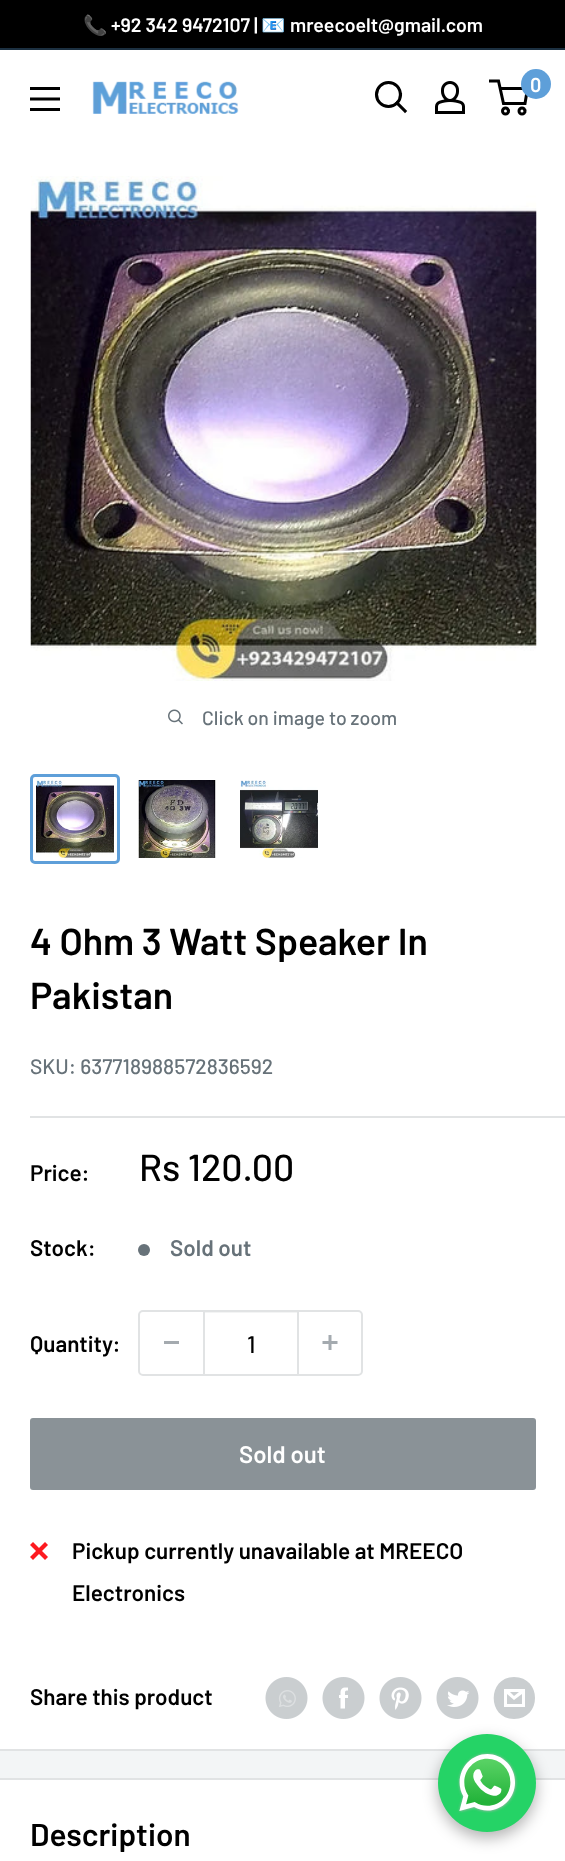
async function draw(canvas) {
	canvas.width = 565;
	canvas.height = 1861;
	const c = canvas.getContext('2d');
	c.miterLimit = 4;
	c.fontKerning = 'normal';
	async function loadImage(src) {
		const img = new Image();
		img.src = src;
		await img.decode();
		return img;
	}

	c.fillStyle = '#f3f5f6';
	c.fillRect(0, 0, 565, 1861);
	c.fillStyle = '#000';
	c.fillRect(0, 0, 565, 48);
	c.fillStyle = '#1c3041';
	c.fillRect(0, 48, 565, 2);
	c.font = 'bold 19.5px Noto Color Emoji';
	c.fillStyle = '#fff';
	c.fillText('📞', 83, 32);
	c.font = '600 19.5px Barlow';
	c.fillText('+92 342 9472107 |', 111, 32);
	c.font = 'bold 19.5px Noto Color Emoji';
	c.fillText('📧', 261, 32);
	c.font = '600 19.5px Barlow';
	c.fillText('mreecoelt@gmail.com', 290, 32);
	c.fillRect(0, 50, 565, 862);
	c.drawImage(await loadImage('img1.png'), 30, 87, 30, 24);
	c.drawImage(await loadImage('img2.png'), 92, 81, 147, 33);
	c.beginPath();
	c.moveTo(405, 111);
	c.lineTo(397, 103);
	c.strokeStyle = '#000';
	c.lineWidth = 3.1;
	c.lineCap = 'square';
	c.stroke();
	c.beginPath();
	c.arc(388.5, 94.5, 12, 0, 2 * Math.PI);
	c.stroke();
	c.drawImage(await loadImage('img3.png'), 435, 81, 30, 33);
	c.beginPath();
	c.arc(505.5, 111, 3, 0, 2 * Math.PI);
	c.lineWidth = 3;
	c.stroke();
	c.beginPath();
	c.arc(522, 111, 3, 0, 2 * Math.PI);
	c.stroke();
	c.beginPath();
	c.moveTo(500, 88.5);
	c.lineTo(527.5, 88.5);
	c.lineTo(525, 103.5);
	c.lineTo(503.5, 103.5);
	c.lineTo(498.5, 81);
	c.lineTo(489, 81);
	c.lineCap = 'butt';
	c.stroke();
	c.fillStyle = '#5e9fd9';
	c.beginPath();
	c.arc(536, 84, 15, 0, 2 * Math.PI);
	c.fill();
	c.font = '600 20px Barlow';
	c.fillStyle = '#fff';
	c.fillText('0', 530, 92);
	c.drawImage(await loadImage('img4.png'), 30, 176, 507, 505);
	c.drawImage(await loadImage('img5.png'), 168, 709, 15, 16);
	c.font = '500 19.5px Barlow';
	c.fillStyle = '#677279';
	c.fillText('Click on image to zoom', 202, 725);
	c.beginPath();
	c.roundRect(31.5, 775.5, 87, 87, 3.5);
	c.strokeStyle = '#5e9fd9';
	c.stroke();
	c.drawImage(await loadImage('img6.png'), 36, 780, 78, 78);
	c.drawImage(await loadImage('img7.png'), 138, 780, 78, 78);
	c.drawImage(await loadImage('img8.png'), 240, 780, 78, 78);
	c.fillStyle = '#fff';
	c.beginPath();
	c.moveTo(0, 912);
	c.lineTo(0, 914);
	c.lineTo(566, 914);
	c.lineTo(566, 1749);
	c.lineTo(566, 912);
	c.closePath();
	c.fill();
	c.fillRect(0, 914, 565, 835);
	c.fillStyle = '#e1e3e4';
	c.fillRect(0, 1749, 565, 2);
	c.font = '600 37.5px Barlow';
	c.fillStyle = '#000';
	c.fillText('4 Ohm 3 Watt Speaker In', 30, 955);
	c.fillText('Pakistan', 30, 1009);
	c.font = '500 21px Barlow';
	c.fillStyle = '#677279';
	c.fillText('SKU: 637718988572836592', 30, 1074);
	c.fillStyle = '#e1e3e4';
	c.fillRect(30, 1116, 535, 2);
	c.font = '600 22.5px Barlow';
	c.fillStyle = '#000';
	c.fillText('Price:', 30, 1181);
	c.font = '500 37.5px Barlow';
	c.fillText('Rs 120.00', 139, 1181);
	c.font = '600 22.5px Barlow';
	c.fillText('Stock:', 30, 1256);
	c.fillStyle = '#677279';
	c.beginPath();
	c.arc(144, 1250, 6, 0, 2 * Math.PI);
	c.fill();
	c.fillText('Sold out', 170, 1256);
	c.fillStyle = '#000';
	c.fillText('Quantity:', 30, 1352);
	c.beginPath();
	c.roundRect(139, 1311, 223, 64, 4);
	c.strokeStyle = '#e1e3e4';
	c.lineWidth = 2;
	c.stroke();
	for (const [x, y, w, h, color] of [
		[164, 1341, 15, 3, '#a4aaaf'],
		[204, 1312, 93, 1, '#e1e3e466'],
		[297, 1311, 2, 63, '#e1e3e4'],
		[203, 1311, 2, 63, '#e1e3e4'],
	]) {
		c.fillStyle = color;
		c.fillRect(x, y, w, h);
	}
	c.font = '500 24px Barlow';
	c.fillStyle = '#000';
	c.fillText('1', 247, 1353);
	c.drawImage(await loadImage('img9.png'), 322, 1335, 16, 15);
	c.fillStyle = '#8a9297';
	c.beginPath();
	c.roundRect(31, 1419, 504, 70, 2);
	c.fill();
	c.strokeStyle = '#8a9297';
	c.stroke();
	c.font = '600 24px Barlow';
	c.fillStyle = '#fff';
	c.fillText('Sold out', 239, 1463);
	c.drawImage(await loadImage('img10.png'), 30, 1542, 18, 18);
	c.font = '600 22.5px Barlow';
	c.fillStyle = '#000';
	for (const [text, x, y] of [
		['Pickup currently unavailable at MREECO', 72, 1559],
		['Electronics', 72, 1601],
		['Share this product', 30, 1705],
	]) {
		c.fillText(text, x, y);
	}
	c.drawImage(await loadImage('img11.png'), 265, 1677, 43, 42);
	c.drawImage(await loadImage('img12.png'), 322, 1677, 43, 42);
	c.drawImage(await loadImage('img13.png'), 379, 1677, 43, 42);
	c.drawImage(await loadImage('img14.png'), 436, 1677, 43, 42);
	c.fillStyle = '#caced0';
	c.beginPath();
	c.moveTo(514, 1719);
	c.bezierCurveTo(487, 1719, 487, 1677, 514, 1677);
	c.bezierCurveTo(542, 1677, 542, 1719, 514, 1719);
	c.closePath();
	c.moveTo(510, 1692);
	c.lineTo(519, 1692);
	c.lineTo(514, 1696);
	c.closePath();
	c.moveTo(522, 1694);
	c.lineTo(522, 1704);
	c.lineTo(507, 1704);
	c.lineTo(507, 1694);
	c.lineTo(514, 1700);
	c.closePath();
	c.moveTo(525, 1689);
	c.lineTo(504, 1689);
	c.lineTo(504, 1707);
	c.lineTo(525, 1707);
	c.closePath();
	c.fill();
	c.fillStyle = '#fff';
	c.fillRect(0, 1780, 565, 81);
	c.fillStyle = '#e1e3e4';
	c.fillRect(0, 1778, 565, 2);
	c.font = '600 31.5px Barlow';
	c.fillStyle = '#000';
	c.fillText('Description', 30, 1846);
	c.fillStyle = '#0000004d';
	c.filter = 'blur(7.5px)';
	c.beginPath();
	c.roundRect(438, 1740, 98, 98, 49);
	c.fill();
	c.filter = 'none';
	c.fillStyle = '#25d366';
	c.beginPath();
	c.arc(487, 1783, 49, 0, 2 * Math.PI);
	c.fill();
	c.drawImage(await loadImage('img15.png'), 457, 1752, 61, 61);
}

draw(document.querySelector('canvas'));
